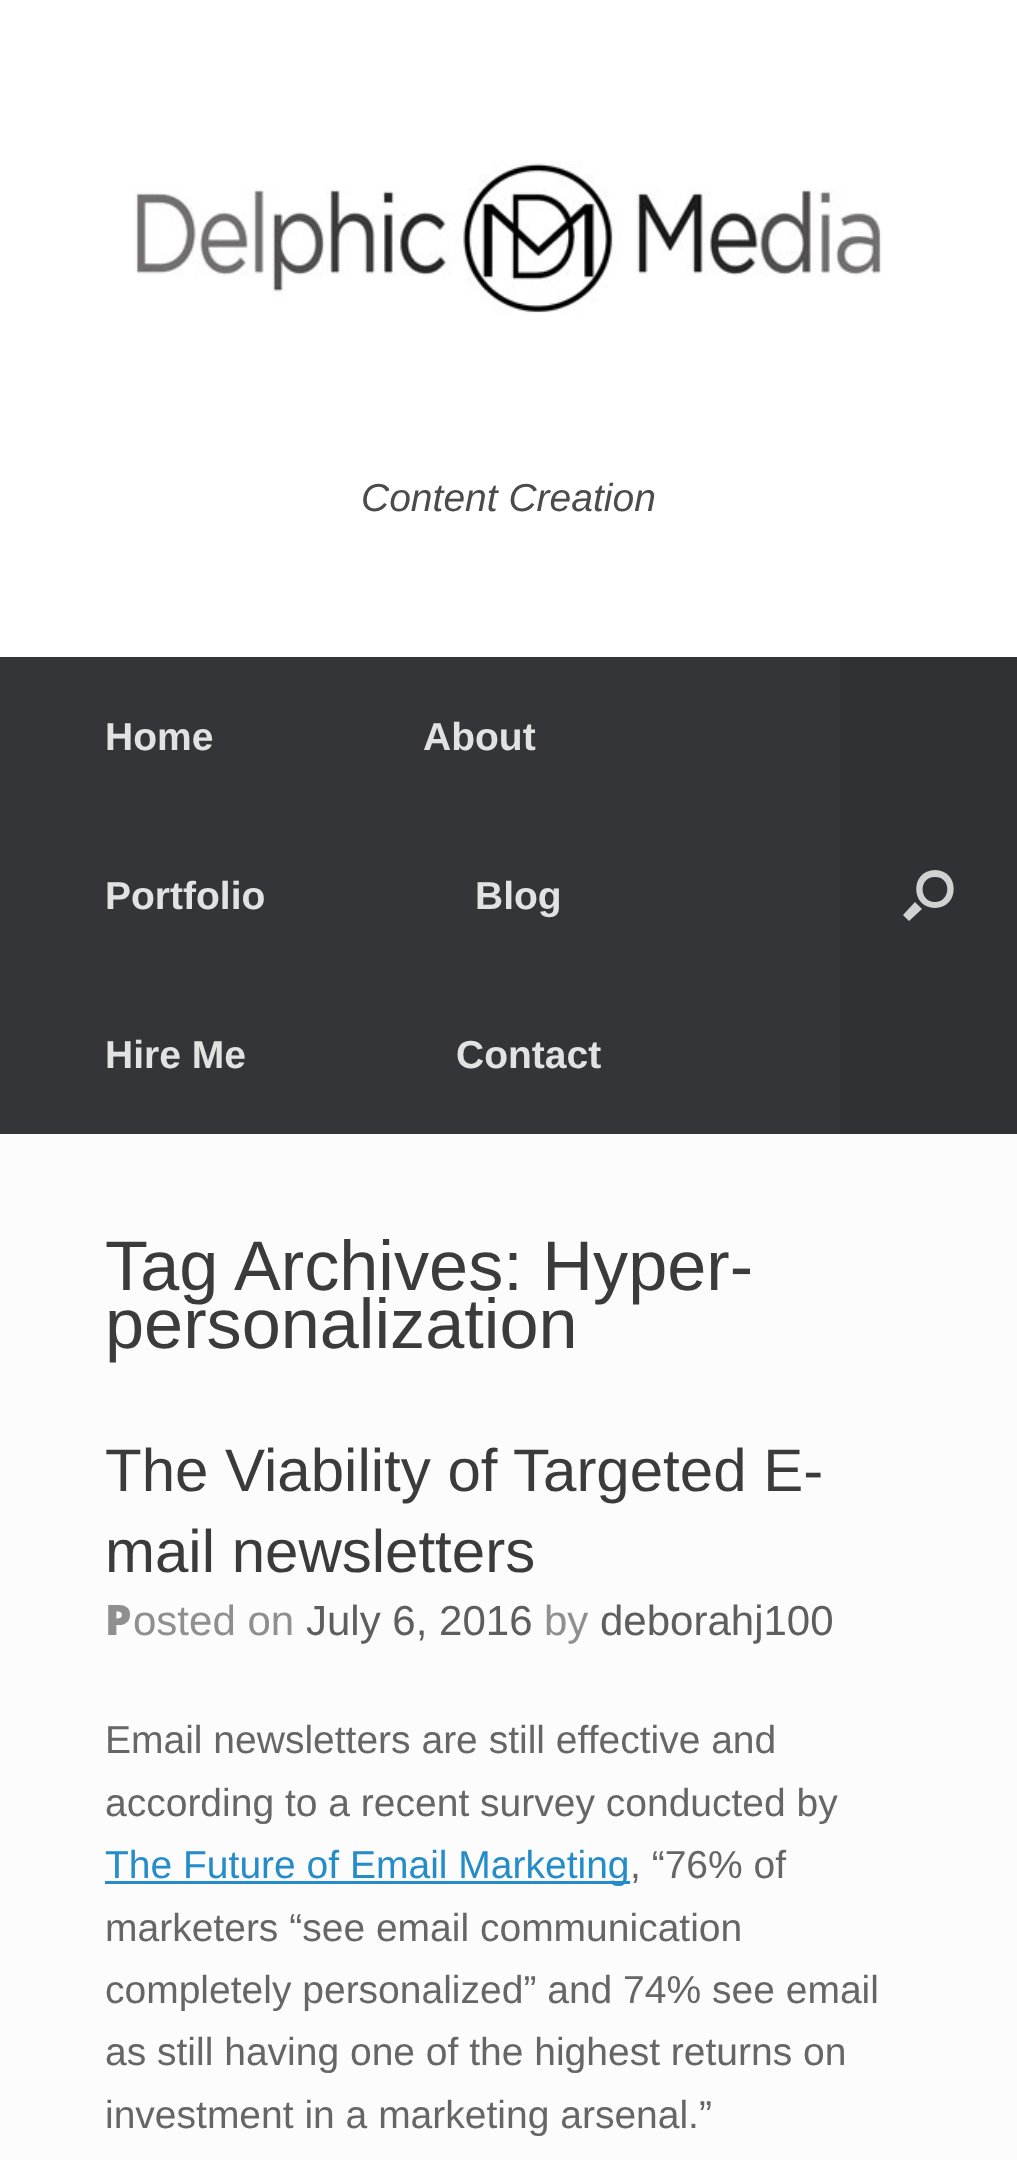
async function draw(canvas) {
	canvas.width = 1017;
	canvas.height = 2160;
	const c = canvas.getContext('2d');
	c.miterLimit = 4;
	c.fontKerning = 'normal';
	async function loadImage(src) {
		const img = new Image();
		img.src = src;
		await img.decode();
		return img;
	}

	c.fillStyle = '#fff';
	c.fillRect(0, 0, 1017, 2160);
	c.drawImage(await loadImage('img1.png'), 135, 161, 747, 152);
	c.font = 'italic 39px Liberation Sans';
	c.fillStyle = '#4b4b4b';
	c.fillText('Content Creation', 361, 511);
	c.fillStyle = '#343538';
	c.fillRect(0, 657, 840, 477);
	c.font = 'bold 39px Liberation Sans';
	c.fillStyle = '#e2e2e2';
	for (const [text, x, y] of [
		['Home', 105, 750],
		['About', 423, 750],
		['Portfolio', 105, 909],
		['Blog', 475, 909],
		['Hire Me', 105, 1068],
		['Contact', 456, 1068],
	]) {
		c.fillText(text, x, y);
	}
	c.fillStyle = '#303134';
	c.fillRect(840, 657, 177, 477);
	c.fillStyle = '#d1d1d1';
	c.beginPath();
	c.moveTo(935, 877);
	c.bezierCurveTo(952, 877, 951, 902, 935, 902);
	c.bezierCurveTo(919, 902, 918, 877, 935, 877);
	c.closePath();
	c.moveTo(935, 870);
	c.bezierCurveTo(910, 870, 910, 908, 935, 908);
	c.bezierCurveTo(960, 908, 960, 870, 935, 870);
	c.closePath();
	c.moveTo(915, 902);
	c.lineTo(922, 909);
	c.lineTo(909, 921);
	c.lineTo(903, 915);
	c.closePath();
	c.fill();
	c.fillStyle = '#fcfcfc';
	c.fillRect(0, 1134, 1017, 1026);
	c.font = '70.25px Liberation Sans';
	c.fillStyle = '#3b3b3b';
	c.fillText('Tag Archives: Hyper-', 105, 1290);
	c.fillText('personalization', 105, 1348);
	c.font = '60px Liberation Sans';
	c.fillText('The Viability of Targeted E-', 105, 1491);
	c.fillText('mail newsletters', 105, 1572);
	c.font = '900 42px Noto Sans';
	c.fillStyle = '#8f8f8f';
	c.fillText('P', 105, 1635);
	c.font = '42px Liberation Sans';
	c.fillText('osted on', 133, 1635);
	c.fillStyle = '#5e5e5e';
	c.fillText('July 6, 2016', 306, 1635);
	c.fillStyle = '#8f8f8f';
	c.fillText('by', 544, 1635);
	c.fillStyle = '#5e5e5e';
	c.fillText('deborahj100', 600, 1635);
	c.font = '39px Liberation Sans';
	c.fillStyle = '#666';
	c.fillText('Email newsletters are still effective and', 105, 1753);
	c.fillText('according to a recent survey conducted by', 105, 1816);
	c.fillStyle = '#248cc8';
	c.fillRect(105, 1881, 525, 3);
	c.fillText('The Future of Email Marketing', 105, 1878);
	c.fillStyle = '#666';
	for (const [text, x, y] of [
		[', “76% of', 630, 1878],
		['marketers “see email communication', 105, 1941],
		['completely personalized” and 74% see email', 105, 2003],
		['as still having one of the highest returns on', 105, 2065],
		['investment in a marketing arsenal.”', 105, 2128],
	]) {
		c.fillText(text, x, y);
	}
}

draw(document.querySelector('canvas'));
